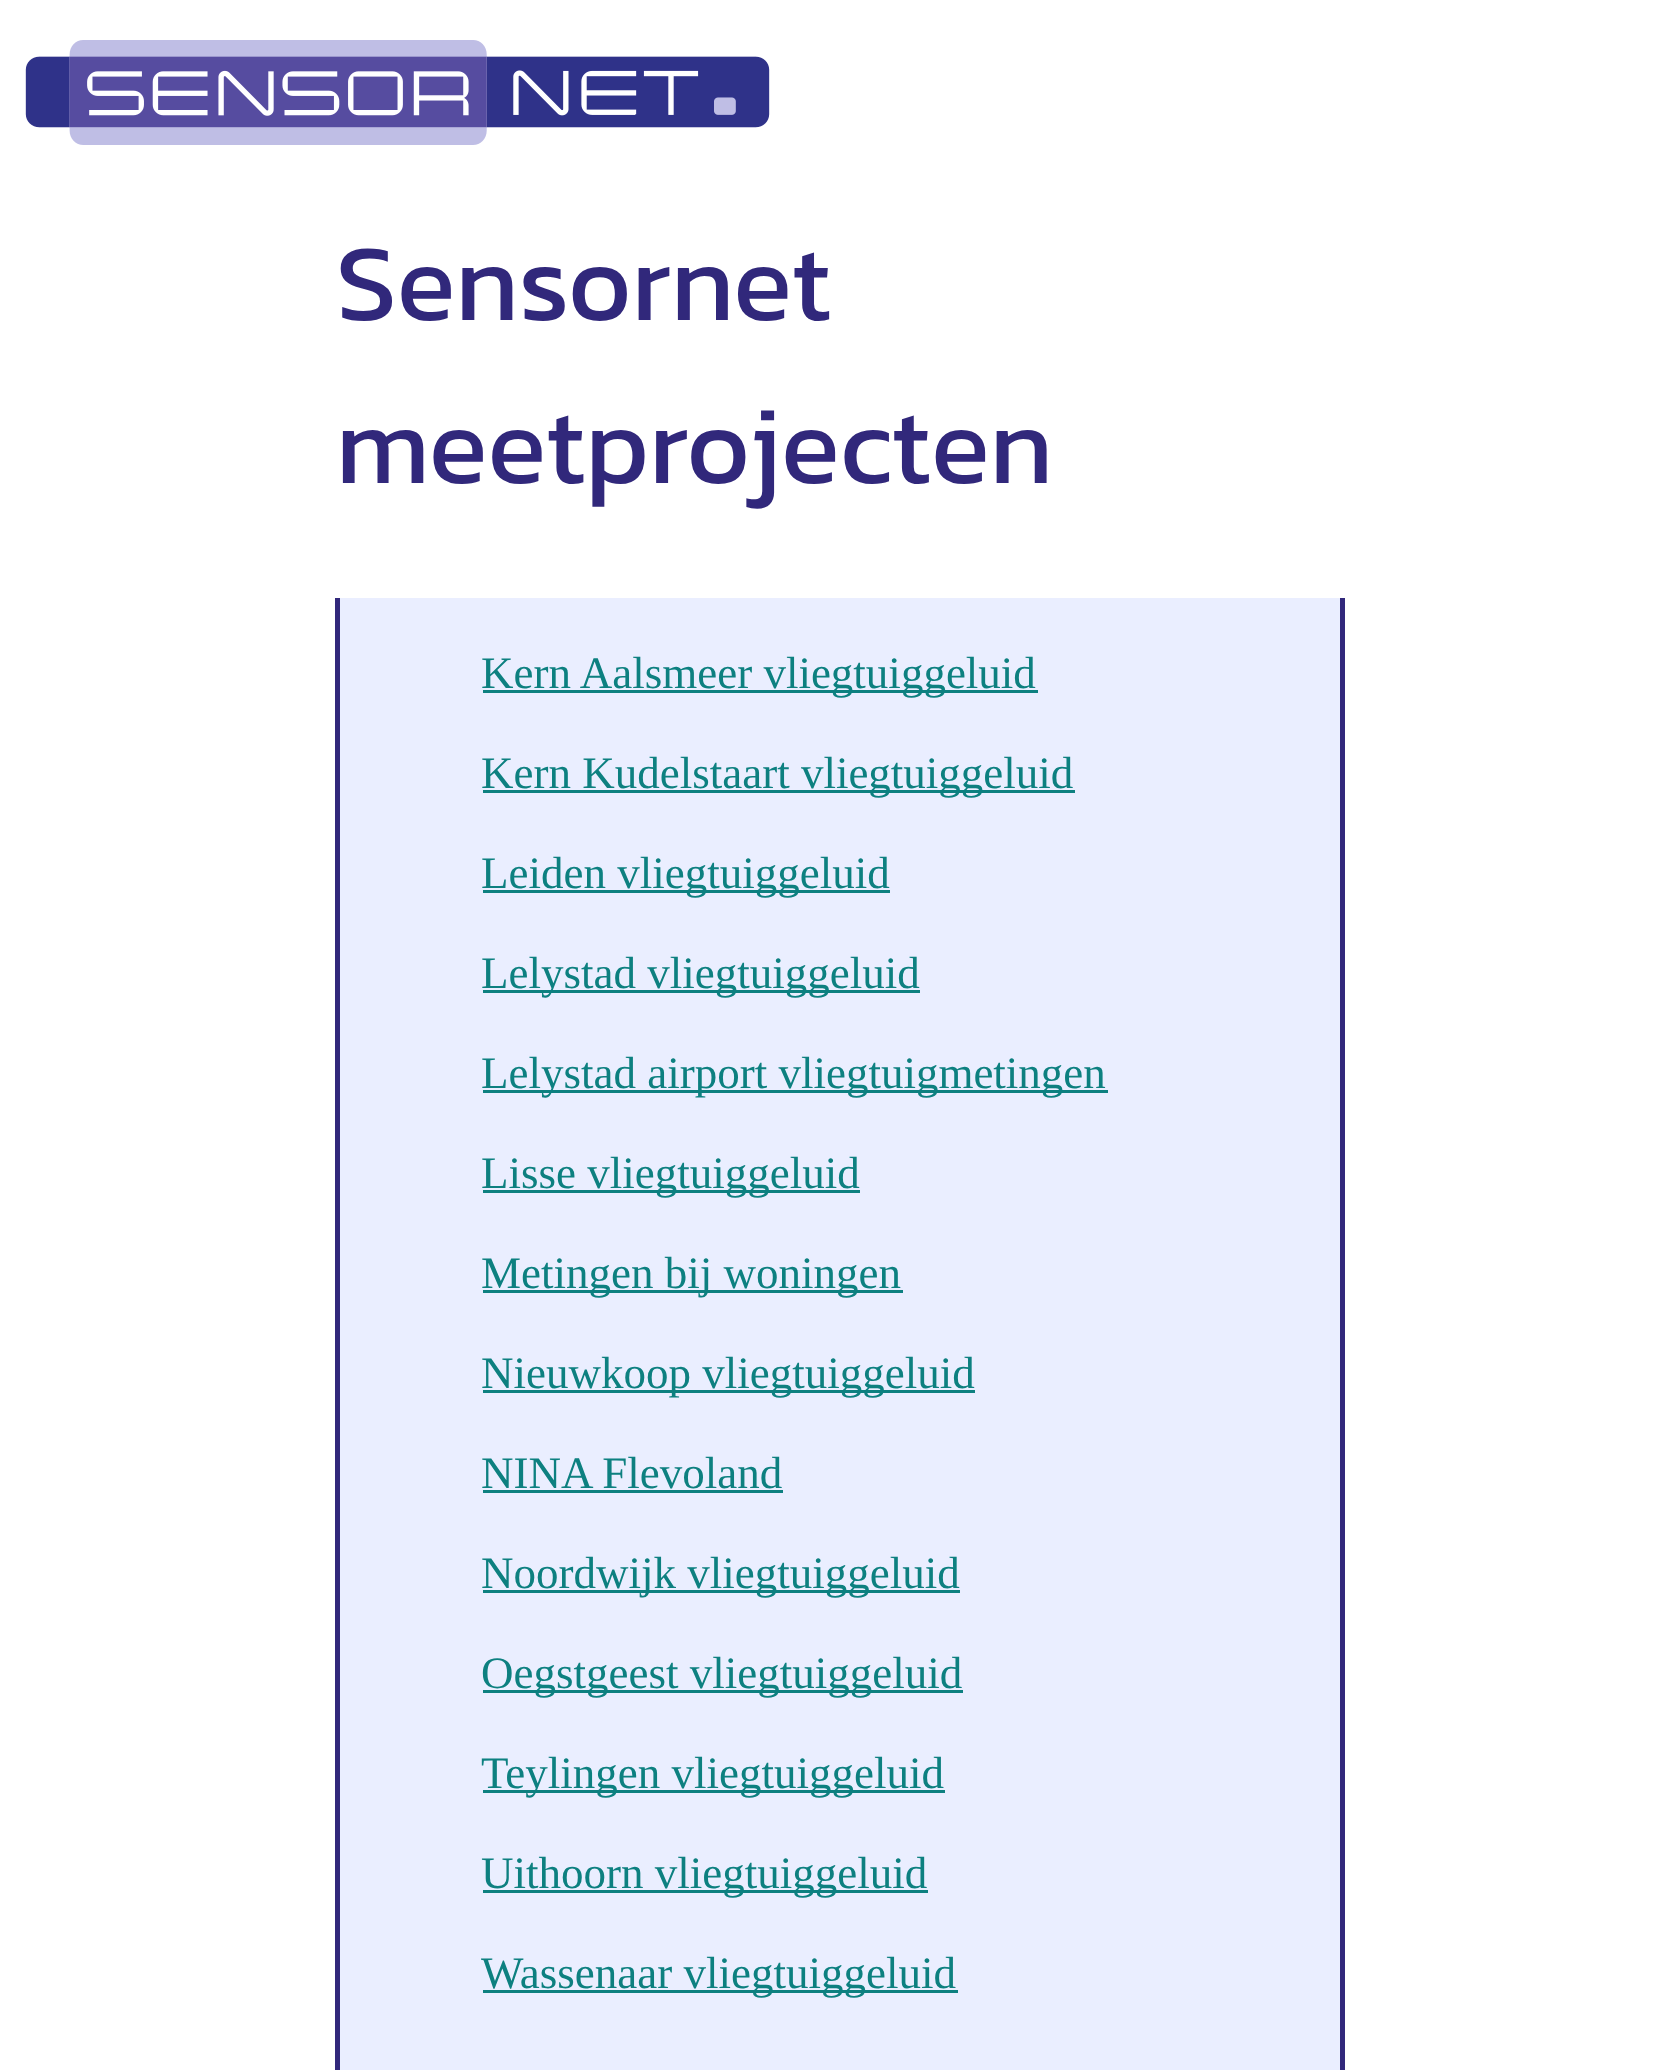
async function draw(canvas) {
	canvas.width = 1678;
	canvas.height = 2070;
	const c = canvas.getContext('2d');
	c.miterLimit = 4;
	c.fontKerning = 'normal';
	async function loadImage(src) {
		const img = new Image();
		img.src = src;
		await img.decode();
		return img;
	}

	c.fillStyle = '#fff';
	c.fillRect(0, 0, 1678, 2070);
	c.fillStyle = '#eaeeff';
	c.fillRect(340, 598, 1000, 1472);
	c.save();
	c.beginPath();
	c.rect(335, 598, 1010, 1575);
	c.clip();
	c.beginPath();
	c.roundRect(337.5, -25.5, 1005, 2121, 20.5);
	c.strokeStyle = '#31287b';
	c.lineWidth = 5;
	c.stroke();
	c.restore();
	c.drawImage(await loadImage('img1.png'), 25, 40, 745, 105);
	c.font = '109.5px Kanit';
	c.fillStyle = '#31287b';
	c.fillText('Sensornet', 336, 320);
	c.fillText('meetprojecten', 336, 483);
	c.fillStyle = '#0d8080';
	c.fillRect(483, 690, 555, 3);
	c.font = '45px Liberation Serif';
	c.fillText('Kern Aalsmeer vliegtuiggeluid', 481, 688);
	c.fillRect(483, 790, 592, 3);
	c.fillText('Kern Kudelstaart vliegtuiggeluid', 481, 788);
	c.fillRect(483, 890, 407, 3);
	c.fillText('Leiden vliegtuiggeluid', 481, 888);
	c.fillRect(483, 990, 437, 3);
	c.fillText('Lelystad vliegtuiggeluid', 481, 988);
	c.fillRect(483, 1090, 625, 3);
	c.fillText('Lelystad airport vliegtuigmetingen', 481, 1088);
	c.fillRect(483, 1190, 377, 3);
	c.fillText('Lisse vliegtuiggeluid', 481, 1188);
	c.fillRect(483, 1290, 420, 3);
	c.fillText('Metingen bij woningen', 481, 1288);
	c.fillRect(483, 1390, 492, 3);
	c.fillText('Nieuwkoop vliegtuiggeluid', 481, 1388);
	c.fillText('NINA Flevoland', 481, 1488);
	c.fillRect(483, 1490, 300, 3);
	c.fillRect(483, 1590, 477, 3);
	c.fillText('Noordwijk vliegtuiggeluid', 481, 1588);
	c.fillRect(483, 1690, 480, 3);
	c.fillText('Oegstgeest vliegtuiggeluid', 481, 1688);
	c.fillRect(483, 1790, 462, 3);
	c.fillText('Teylingen vliegtuiggeluid', 481, 1788);
	c.fillRect(483, 1890, 445, 3);
	c.fillText('Uithoorn vliegtuiggeluid', 481, 1888);
	c.fillRect(483, 1990, 475, 3);
	c.fillText('Wassenaar vliegtuiggeluid', 481, 1988);
}

draw(document.querySelector('canvas'));
